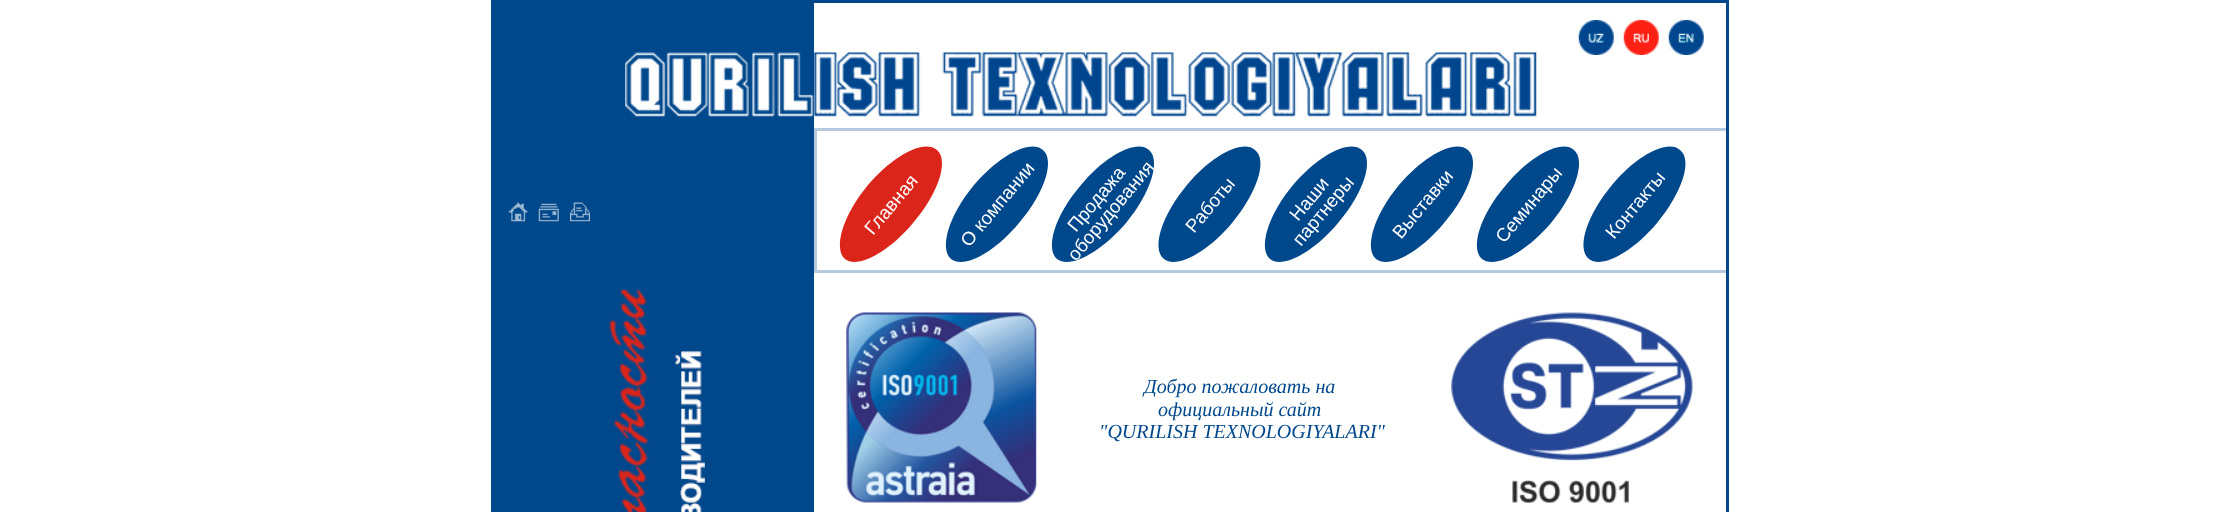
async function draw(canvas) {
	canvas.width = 2220;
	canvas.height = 512;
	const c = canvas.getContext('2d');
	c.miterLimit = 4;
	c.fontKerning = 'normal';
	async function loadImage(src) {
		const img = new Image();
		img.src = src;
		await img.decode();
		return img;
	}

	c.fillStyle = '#fff';
	c.fillRect(0, 0, 2220, 512);
	c.fillStyle = '#00488c';
	c.fillRect(491, 0, 323, 512);
	c.fillRect(1726, 0, 3, 512);
	c.drawImage(await loadImage('img1.png'), 625, 52, 912, 65);
	c.drawImage(await loadImage('img2.png'), 508, 202, 20, 20);
	c.drawImage(await loadImage('img3.png'), 538, 203, 21, 19);
	c.drawImage(await loadImage('img4.png'), 570, 202, 20, 20);
	c.fillRect(814, 0, 912, 3);
	c.drawImage(await loadImage('img5.png'), 1578, 20, 36, 35);
	c.drawImage(await loadImage('img6.png'), 1623, 20, 36, 35);
	c.drawImage(await loadImage('img7.png'), 1668, 20, 36, 35);
	for (const [x, y, w, h, color] of [
		[814, 128, 912, 3, '#b5cade'],
		[814, 270, 912, 3, '#b5cade'],
		[814, 128, 3, 145, '#b5cade'],
	]) {
		c.fillStyle = color;
		c.fillRect(x, y, w, h);
	}
	c.fillStyle = '#db251b';
	c.beginPath();
	c.moveTo(868, 185);
	c.bezierCurveTo(894, 155, 924, 139, 937, 150);
	c.bezierCurveTo(949, 160, 939, 193, 913, 223);
	c.bezierCurveTo(888, 253, 857, 269, 845, 259);
	c.bezierCurveTo(833, 248, 843, 215, 868, 185);
	c.closePath();
	c.fill();
	c.font = '18.75px Liberation Sans';
	c.fillStyle = '#fff';
	c.save();
	c.translate(873, 236);
	c.rotate(-50 * Math.PI / 180);
	c.fillText('Главная', 0, 0);
	c.restore();
	c.fillStyle = '#00488c';
	c.beginPath();
	c.moveTo(974, 185);
	c.bezierCurveTo(1000, 155, 1030, 139, 1043, 150);
	c.bezierCurveTo(1055, 160, 1045, 193, 1019, 223);
	c.bezierCurveTo(994, 253, 964, 269, 951, 259);
	c.bezierCurveTo(939, 248, 949, 215, 974, 185);
	c.closePath();
	c.fill();
	c.fillStyle = '#fff';
	c.save();
	c.translate(969, 248);
	c.rotate(-50 * Math.PI / 180);
	c.fillText('О компании', 0, 0);
	c.restore();
	c.fillStyle = '#00488c';
	c.beginPath();
	c.moveTo(1081, 185);
	c.bezierCurveTo(1106, 155, 1137, 139, 1149, 150);
	c.bezierCurveTo(1161, 160, 1151, 193, 1126, 223);
	c.bezierCurveTo(1100, 253, 1070, 269, 1057, 259);
	c.bezierCurveTo(1045, 248, 1055, 215, 1081, 185);
	c.closePath();
	c.fill();
	c.fillStyle = '#fff';
	c.save();
	c.translate(1076, 233);
	c.rotate(-50 * Math.PI / 180);
	c.fillText('Продажа', 0, 0);
	c.restore();
	c.save();
	c.translate(1076, 262);
	c.rotate(-50 * Math.PI / 180);
	c.fillText('оборудования', 0, 0);
	c.restore();
	c.fillStyle = '#00488c';
	c.beginPath();
	c.moveTo(1187, 185);
	c.bezierCurveTo(1212, 155, 1243, 139, 1255, 150);
	c.bezierCurveTo(1268, 160, 1257, 193, 1232, 223);
	c.bezierCurveTo(1207, 253, 1176, 269, 1164, 259);
	c.bezierCurveTo(1151, 248, 1162, 215, 1187, 185);
	c.closePath();
	c.fill();
	c.fillStyle = '#fff';
	c.save();
	c.translate(1194, 234);
	c.rotate(-50 * Math.PI / 180);
	c.fillText('Работы', 0, 0);
	c.restore();
	c.fillStyle = '#00488c';
	c.beginPath();
	c.moveTo(1293, 185);
	c.bezierCurveTo(1319, 155, 1349, 139, 1362, 150);
	c.bezierCurveTo(1374, 160, 1364, 193, 1338, 223);
	c.bezierCurveTo(1313, 253, 1282, 269, 1270, 259);
	c.bezierCurveTo(1258, 248, 1268, 215, 1293, 185);
	c.closePath();
	c.fill();
	c.fillStyle = '#fff';
	c.save();
	c.translate(1298, 222);
	c.rotate(-50 * Math.PI / 180);
	c.fillText('Наши', 0, 0);
	c.restore();
	c.save();
	c.translate(1301, 247);
	c.rotate(-50 * Math.PI / 180);
	c.fillText('партнеры', 0, 0);
	c.restore();
	c.fillStyle = '#00488c';
	c.beginPath();
	c.moveTo(1399, 185);
	c.bezierCurveTo(1425, 155, 1455, 139, 1468, 150);
	c.bezierCurveTo(1480, 160, 1470, 193, 1444, 223);
	c.bezierCurveTo(1419, 253, 1389, 269, 1376, 259);
	c.bezierCurveTo(1364, 248, 1374, 215, 1399, 185);
	c.closePath();
	c.fill();
	c.fillStyle = '#fff';
	c.save();
	c.translate(1401, 240);
	c.rotate(-50 * Math.PI / 180);
	c.fillText('Выставки', 0, 0);
	c.restore();
	c.fillStyle = '#00488c';
	c.beginPath();
	c.moveTo(1506, 185);
	c.bezierCurveTo(1531, 155, 1562, 139, 1574, 150);
	c.bezierCurveTo(1586, 160, 1576, 193, 1551, 223);
	c.bezierCurveTo(1525, 253, 1495, 269, 1482, 259);
	c.bezierCurveTo(1470, 248, 1480, 215, 1506, 185);
	c.closePath();
	c.fill();
	c.fillStyle = '#fff';
	c.save();
	c.translate(1504, 244);
	c.rotate(-50 * Math.PI / 180);
	c.fillText('Семинары', 0, 0);
	c.restore();
	c.fillStyle = '#00488c';
	c.beginPath();
	c.moveTo(1612, 185);
	c.bezierCurveTo(1637, 155, 1668, 139, 1680, 150);
	c.bezierCurveTo(1693, 160, 1682, 193, 1657, 223);
	c.bezierCurveTo(1632, 253, 1601, 269, 1589, 259);
	c.bezierCurveTo(1576, 248, 1587, 215, 1612, 185);
	c.closePath();
	c.fill();
	c.fillStyle = '#fff';
	c.save();
	c.translate(1614, 240);
	c.rotate(-50 * Math.PI / 180);
	c.fillText('Контакты', 0, 0);
	c.restore();
	c.drawImage(await loadImage('img8.png'), 608, 290, 97, 222);
	c.drawImage(await loadImage('img9.png'), 846, 312, 191, 191);
	c.font = 'italic 20px Liberation Serif';
	c.fillStyle = '#00488c';
	for (const [text, x, y] of [
		['Добро пожаловать на', 1144, 393],
		['официальный сайт', 1158, 416],
		['"QURILISH TEXNOLOGIYALARI"', 1099, 438],
	]) {
		c.fillText(text, x, y);
	}
	c.drawImage(await loadImage('img10.png'), 1451, 312, 242, 191);
}

draw(document.querySelector('canvas'));
